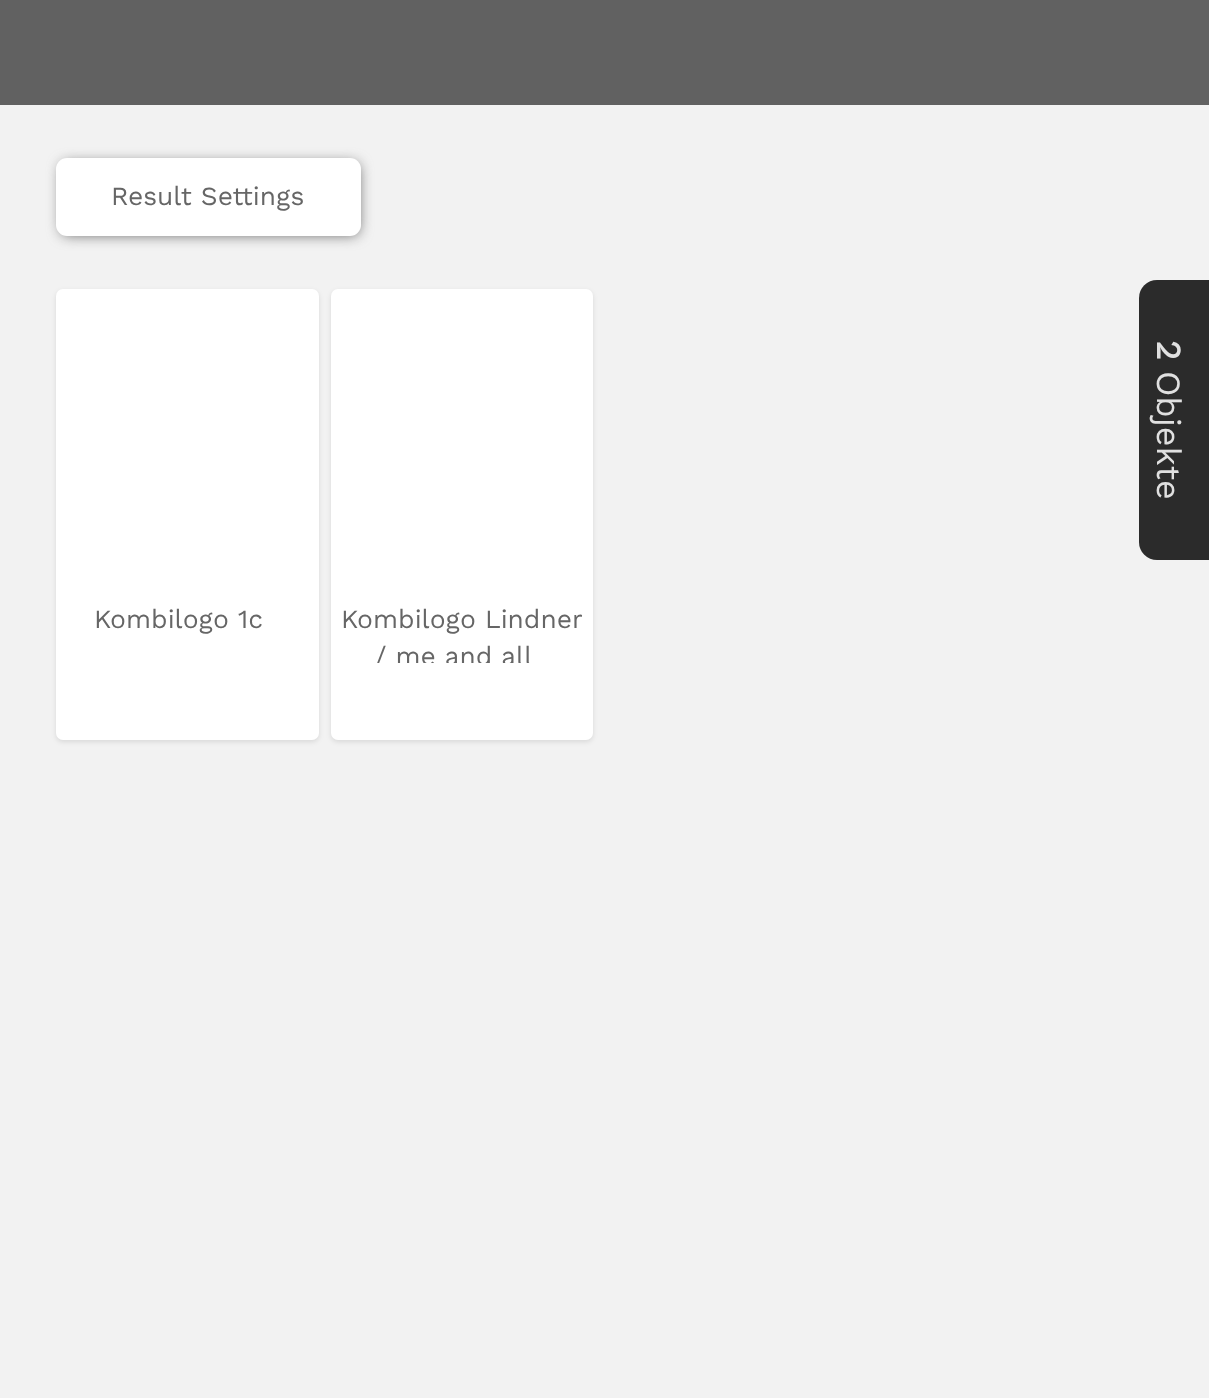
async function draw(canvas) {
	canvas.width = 1209;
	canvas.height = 1398;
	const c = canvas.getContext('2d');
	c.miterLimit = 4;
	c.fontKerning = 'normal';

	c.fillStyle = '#f2f2f2';
	c.fillRect(0, 0, 1209, 1398);
	c.fillStyle = '#616161';
	c.fillRect(0, 0, 1209, 105);
	c.fillStyle = '#666';
	c.filter = 'blur(7px)';
	c.beginPath();
	c.roundRect(61, 163, 298, 72, 7);
	c.fill();
	c.filter = 'none';
	c.fillStyle = '#fff';
	c.beginPath();
	c.roundRect(56, 158, 305, 78, 11);
	c.fill();
	c.font = '26.25px Work Sans';
	c.fillStyle = '#666';
	c.fillText('Result Settings', 111, 205);
	c.fillStyle = '#0000001a';
	c.filter = 'blur(2.5px)';
	c.beginPath();
	c.roundRect(56, 291, 263, 451, 7);
	c.fill();
	c.filter = 'none';
	c.fillStyle = '#fff';
	c.beginPath();
	c.roundRect(56, 289, 263, 451, 7);
	c.fill();
	c.fillStyle = '#666';
	c.fillText('Kombilogo 1c', 94, 628);
	c.fillStyle = '#0000001a';
	c.filter = 'blur(2.5px)';
	c.beginPath();
	c.roundRect(331, 291, 262, 451, 7);
	c.fill();
	c.filter = 'none';
	c.fillStyle = '#fff';
	c.beginPath();
	c.roundRect(331, 289, 262, 451, 7);
	c.fill();
	c.fillStyle = '#666';
	c.fillText('Kombilogo Lindner', 341, 628);
	c.save();
	c.beginPath();
	c.rect(340, 602, 245, 61);
	c.clip();
	c.fillText('/ me and all', 375, 665);
	c.restore();
	c.fillStyle = '#2b2b2b';
	c.beginPath();
	c.roundRect(1139, 280, 70, 280, [18, 0, 0, 18]);
	c.fill();
	c.font = 'bold 34px Work Sans';
	c.fillStyle = '#e0e0e0';
	c.save();
	c.translate(1157, 340);
	c.rotate(90 * Math.PI / 180);
	c.fillText('2', 0, 0);
	c.restore();
	c.font = '34px Work Sans';
	c.save();
	c.translate(1157, 371);
	c.rotate(90 * Math.PI / 180);
	c.fillText('Objekte', 0, 0);
	c.restore();
}

draw(document.querySelector('canvas'));
